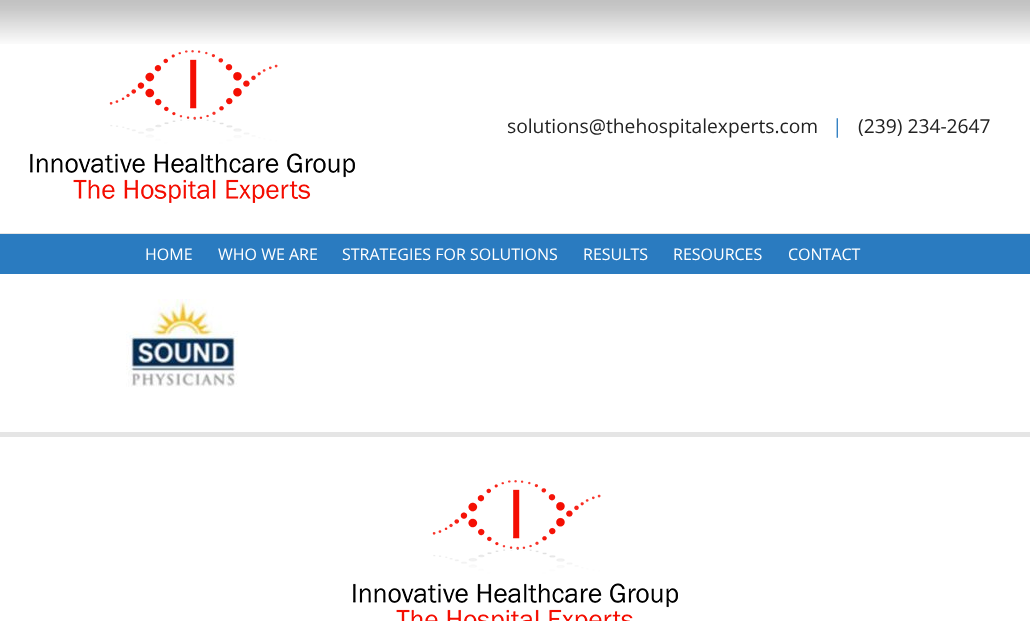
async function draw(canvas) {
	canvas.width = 1030;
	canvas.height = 621;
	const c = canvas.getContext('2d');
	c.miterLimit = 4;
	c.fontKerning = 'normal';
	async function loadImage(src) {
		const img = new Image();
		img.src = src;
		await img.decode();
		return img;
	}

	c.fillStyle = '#fff';
	c.fillRect(0, 0, 1030, 621);
	c.drawImage(await loadImage('img1.png'), 0, 0, 1030, 44);
	c.fillStyle = '#e5e5e5';
	c.fillRect(0, 233, 1030, 1);
	c.drawImage(await loadImage('img2.png'), 30, 50, 325, 153);
	c.font = '19.25px Open Sans';
	c.fillStyle = '#222';
	c.fillText('solutions@thehospitalexperts.com', 507, 133);
	c.fillStyle = '#2a7bc0';
	c.fillText('|', 832, 133);
	c.fillStyle = '#222';
	c.fillText('(239) 234-2647', 858, 133);
	c.fillStyle = '#2a7bc0';
	c.fillRect(0, 234, 1030, 40);
	c.font = '16px Open Sans';
	c.fillStyle = '#fff';
	for (const [text, x, y] of [
		['HOME', 145, 260],
		['WHO WE ARE', 218, 260],
		['STRATEGIES FOR SOLUTIONS', 342, 260],
		['RESULTS', 583, 260],
		['RESOURCES', 673, 260],
		['CONTACT', 788, 260],
	]) {
		c.fillText(text, x, y);
	}
	c.drawImage(await loadImage('img3.png'), 126, 299, 112, 88);
	c.fillStyle = '#e5e5e5';
	c.fillRect(0, 432, 1030, 5);
	c.drawImage(await loadImage('img4.png'), 353, 480, 325, 141);
}

draw(document.querySelector('canvas'));
